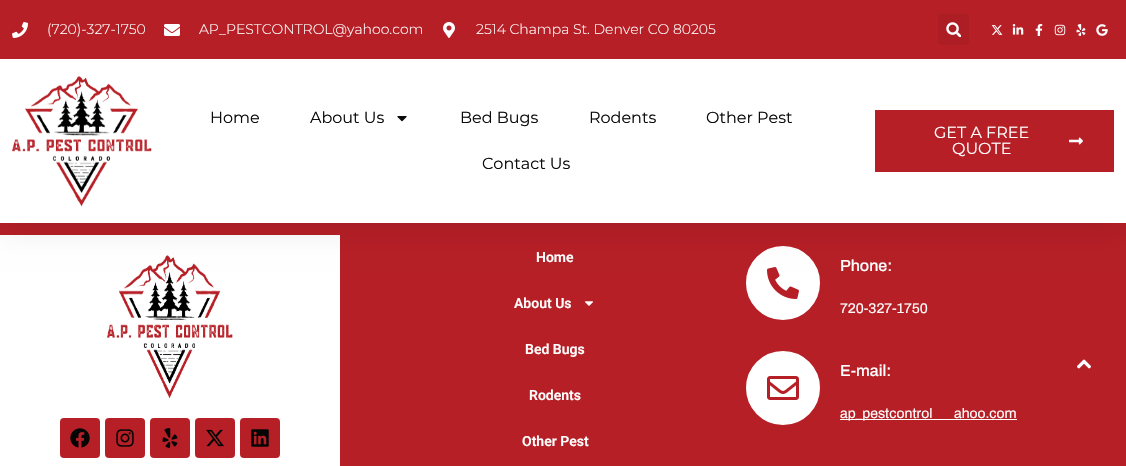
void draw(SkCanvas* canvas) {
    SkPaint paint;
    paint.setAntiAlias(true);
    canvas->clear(0xFFB61F26);
    paint.setColor(0xFFFFFFFF);
    canvas->drawRect(SkRect::MakeXYWH(0, 235, 340, 231), paint);
    canvas->drawImageRect(SkImages::DeferredFromEncodedData(SkData::MakeFromFileName("img14.png")), SkRect::MakeXYWH(107, 255, 126, 143), SkSamplingOptions());
    canvas->drawCircle(783, 283, 38, paint);
    paint.setStyle(SkPaint::kStroke_Style);
    paint.setStrokeWidth(2);
    paint.setColor(0xFFB61F26);
    canvas->drawCircle(783, 283, 38, paint);
    canvas->drawImageRect(SkImages::DeferredFromEncodedData(SkData::MakeFromFileName("img21.png")), SkRect::MakeXYWH(767, 267, 32, 32), SkSamplingOptions());
    paint.setStyle(SkPaint::kFill_Style);
    paint.setColor(0x1A000000);
    paint.setMaskFilter(SkMaskFilter::MakeBlur(kNormal_SkBlurStyle, 15));
    canvas->drawRect(SkRect::MakeXYWH(0, 5, 1126, 223), paint);
    paint.setMaskFilter(nullptr);
    paint.setColor(0xFFB61F26);
    canvas->drawRect(SkRect::MakeXYWH(0, 0, 1126, 59), paint);
    canvas->drawImageRect(SkImages::DeferredFromEncodedData(SkData::MakeFromFileName("img1.png")), SkRect::MakeXYWH(12, 22, 16, 16), SkSamplingOptions());
    SkFont font1(fontMgr->matchFamilyStyle("Montserrat", SkFontStyle(300, SkFontStyle::kNormal_Width, SkFontStyle::kUpright_Slant)), 14);
    font1.setSubpixel(true);
    paint.setColor(0xFFFFFFFF);
    canvas->drawString("(720)-327-1750", 47, 34, font1, paint);
    canvas->drawImageRect(SkImages::DeferredFromEncodedData(SkData::MakeFromFileName("img2.png")), SkRect::MakeXYWH(164, 24, 16, 12), SkSamplingOptions());
    canvas->drawString("AP_PESTCONTROL@yahoo.com", 199, 34, font1, paint);
    canvas->drawImageRect(SkImages::DeferredFromEncodedData(SkData::MakeFromFileName("img3.png")), SkRect::MakeXYWH(443, 22, 12, 16), SkSamplingOptions());
    canvas->drawString("2514 Champa St. Denver CO 80205", 476, 34, font1, paint);
    paint.setColor(0xFFAD1D24);
    canvas->drawRoundRect(SkRect::MakeXYWH(938, 14, 31, 31), 3, 3, paint);
    canvas->drawImageRect(SkImages::DeferredFromEncodedData(SkData::MakeFromFileName("img4.png")), SkRect::MakeXYWH(946, 22, 15, 15), SkSamplingOptions());
    canvas->drawImageRect(SkImages::DeferredFromEncodedData(SkData::MakeFromFileName("img5.png")), SkRect::MakeXYWH(991, 25, 12, 10), SkSamplingOptions());
    canvas->drawImageRect(SkImages::DeferredFromEncodedData(SkData::MakeFromFileName("img6.png")), SkRect::MakeXYWH(1012, 24, 12, 11), SkSamplingOptions());
    canvas->drawImageRect(SkImages::DeferredFromEncodedData(SkData::MakeFromFileName("img7.png")), SkRect::MakeXYWH(1035, 24, 8, 12), SkSamplingOptions());
    canvas->drawImageRect(SkImages::DeferredFromEncodedData(SkData::MakeFromFileName("img8.png")), SkRect::MakeXYWH(1054, 24, 12, 12), SkSamplingOptions());
    canvas->drawImageRect(SkImages::DeferredFromEncodedData(SkData::MakeFromFileName("img9.png")), SkRect::MakeXYWH(1076, 24, 10, 12), SkSamplingOptions());
    canvas->drawImageRect(SkImages::DeferredFromEncodedData(SkData::MakeFromFileName("img10.png")), SkRect::MakeXYWH(1096, 24, 12, 12), SkSamplingOptions());
    paint.setColor(0xFFFFFFFF);
    canvas->drawRect(SkRect::MakeXYWH(0, 59, 1126, 164), paint);
    canvas->drawImageRect(SkImages::DeferredFromEncodedData(SkData::MakeFromFileName("img11.png")), SkRect::MakeXYWH(12, 76, 140, 131), SkSamplingOptions());
    SkFont font2(fontMgr->matchFamilyStyle("Montserrat", SkFontStyle::Normal()), 16);
    font2.setSubpixel(true);
    paint.setColor(0xFF0A0A0A);
    canvas->drawString("Home", 210, 123, font2, paint);
    canvas->drawString("About Us", 310, 123, font2, paint);
    canvas->drawImageRect(SkImages::DeferredFromEncodedData(SkData::MakeFromFileName("img12.png")), SkRect::MakeXYWH(397, 116, 10, 6), SkSamplingOptions());
    canvas->drawString("Bed Bugs", 460, 123, font2, paint);
    canvas->drawString("Rodents", 589, 123, font2, paint);
    canvas->drawString("Other Pest", 706, 123, font2, paint);
    canvas->drawString("Contact Us", 482, 169, font2, paint);
    paint.setColor(0xFFB61F26);
    canvas->drawRect(SkRect::MakeXYWH(875, 110, 239, 62), paint);
    paint.setColor(0xFFFFFFFF);
    canvas->drawString("GET A FREE", 934, 138, font2, paint);
    canvas->drawString("QUOTE", 952, 154, font2, paint);
    canvas->drawImageRect(SkImages::DeferredFromEncodedData(SkData::MakeFromFileName("img13.png")), SkRect::MakeXYWH(1069, 137, 14, 8), SkSamplingOptions());
    paint.setColor(0xFFB61F26);
    canvas->drawRoundRect(SkRect::MakeXYWH(60, 418, 40, 40), 4, 4, paint);
    canvas->drawImageRect(SkImages::DeferredFromEncodedData(SkData::MakeFromFileName("img15.png")), SkRect::MakeXYWH(70, 428, 20, 20), SkSamplingOptions());
    canvas->drawRoundRect(SkRect::MakeXYWH(105, 418, 40, 40), 4, 4, paint);
    canvas->drawImageRect(SkImages::DeferredFromEncodedData(SkData::MakeFromFileName("img16.png")), SkRect::MakeXYWH(116, 429, 18, 18), SkSamplingOptions());
    canvas->drawRoundRect(SkRect::MakeXYWH(150, 418, 40, 40), 4, 4, paint);
    canvas->drawImageRect(SkImages::DeferredFromEncodedData(SkData::MakeFromFileName("img17.png")), SkRect::MakeXYWH(162, 428, 16, 20), SkSamplingOptions());
    canvas->drawRoundRect(SkRect::MakeXYWH(195, 418, 40, 40), 4, 4, paint);
    canvas->drawImageRect(SkImages::DeferredFromEncodedData(SkData::MakeFromFileName("img18.png")), SkRect::MakeXYWH(206, 429, 18, 18), SkSamplingOptions());
    canvas->drawRoundRect(SkRect::MakeXYWH(240, 418, 40, 40), 4, 4, paint);
    canvas->drawImageRect(SkImages::DeferredFromEncodedData(SkData::MakeFromFileName("img19.png")), SkRect::MakeXYWH(251, 429, 18, 18), SkSamplingOptions());
    SkFont font3(fontMgr->matchFamilyStyle("Roboto", SkFontStyle(600, SkFontStyle::kNormal_Width, SkFontStyle::kUpright_Slant)), 14);
    font3.setSubpixel(true);
    paint.setColor(0xFFFFFFFF);
    canvas->drawString("Home", 536, 262, font3, paint);
    canvas->drawString("About Us", 514, 308, font3, paint);
    canvas->drawImageRect(SkImages::DeferredFromEncodedData(SkData::MakeFromFileName("img20.png")), SkRect::MakeXYWH(585, 301, 8, 5), SkSamplingOptions());
    canvas->drawString("Bed Bugs", 525, 354, font3, paint);
    canvas->drawString("Rodents", 529, 400, font3, paint);
    canvas->drawString("Other Pest", 522, 446, font3, paint);
    SkFont font4(fontMgr->matchFamilyStyle("Archivo", SkFontStyle(500, SkFontStyle::kNormal_Width, SkFontStyle::kUpright_Slant)), 16);
    font4.setSubpixel(true);
    canvas->drawString("Phone:", 840, 271, font4, paint);
    SkFont font5(fontMgr->matchFamilyStyle("Archivo", SkFontStyle::Normal()), 14);
    font5.setSubpixel(true);
    canvas->drawString("720-327-1750", 840, 313, font5, paint);
    canvas->drawCircle(783, 388, 38, paint);
    paint.setStyle(SkPaint::kStroke_Style);
    paint.setColor(0xFFB61F26);
    canvas->drawCircle(783, 388, 38, paint);
    canvas->drawImageRect(SkImages::DeferredFromEncodedData(SkData::MakeFromFileName("img22.png")), SkRect::MakeXYWH(767, 376, 32, 24), SkSamplingOptions());
    paint.setStyle(SkPaint::kFill_Style);
    paint.setColor(0xFFFFFFFF);
    canvas->drawString("E-mail:", 840, 376, font4, paint);
    canvas->drawRect(SkRect::MakeXYWH(840, 419, 177, 1), paint);
    canvas->drawString("ap_pestcontrol", 840, 418, font5, paint);
    canvas->drawString("ahoo.com", 954, 418, font5, paint);
    canvas->drawImageRect(SkImages::DeferredFromEncodedData(SkData::MakeFromFileName("img23.png")), SkRect::MakeXYWH(1077, 359, 14, 10), SkSamplingOptions());
}
